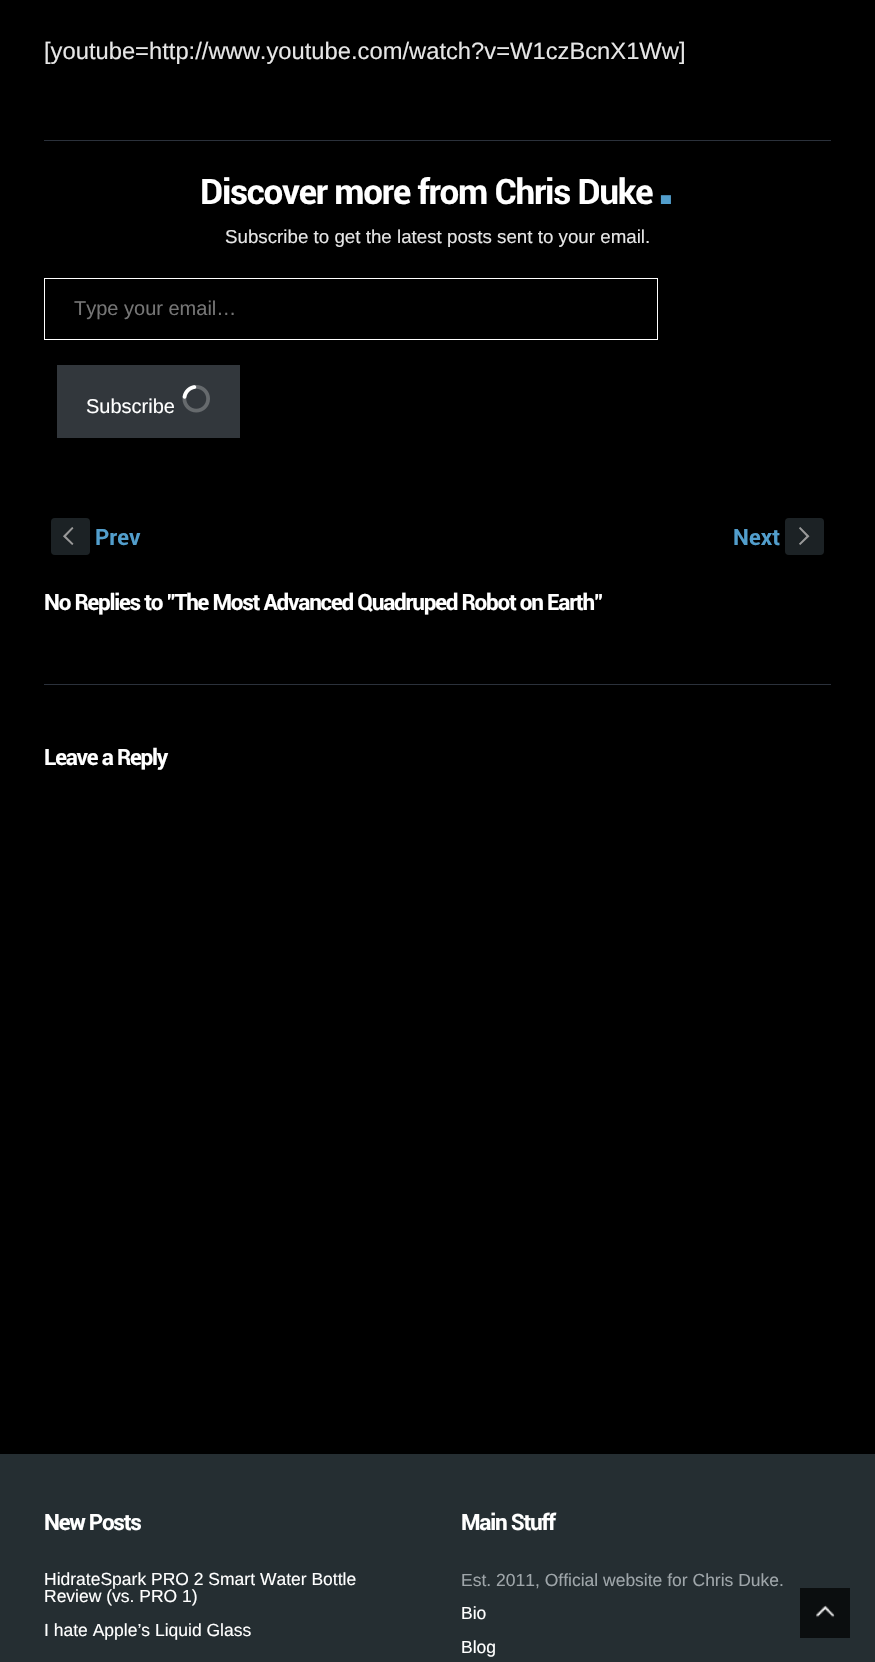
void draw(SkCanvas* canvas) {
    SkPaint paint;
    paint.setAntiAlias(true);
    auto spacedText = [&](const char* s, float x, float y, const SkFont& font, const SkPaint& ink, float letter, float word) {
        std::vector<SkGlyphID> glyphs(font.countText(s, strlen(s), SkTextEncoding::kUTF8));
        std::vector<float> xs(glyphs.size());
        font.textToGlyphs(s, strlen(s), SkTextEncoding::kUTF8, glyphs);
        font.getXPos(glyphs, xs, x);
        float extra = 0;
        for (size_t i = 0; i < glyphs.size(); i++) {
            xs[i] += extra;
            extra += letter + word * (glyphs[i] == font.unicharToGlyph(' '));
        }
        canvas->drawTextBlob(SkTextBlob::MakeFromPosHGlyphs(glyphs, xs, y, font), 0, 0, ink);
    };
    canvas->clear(0xFF000000);
    SkFont font1(fontMgr->matchFamilyStyle("Liberation Sans", SkFontStyle::Normal()), 23.75f);
    font1.setSubpixel(true);
    paint.setColor(0xFFE6E6E6);
    canvas->drawString("[youtube=http://www.youtube.com/watch?v=W1czBcnX1Ww]", 44, 59, font1, paint);
    paint.setColor(0xFF2B313B);
    canvas->drawRect(SkRect::MakeXYWH(44, 140, 787, 1), paint);
    SkFont font2(fontMgr->matchFamilyStyle("Roboto", SkFontStyle::Bold()), 35);
    font2.setSubpixel(true);
    paint.setColor(0xFFFFFFFF);
    spacedText("Discover more from Chris Duke", 200, 204, font2, paint, -1.25f, 0);
    SkFont font3(fontMgr->matchFamilyStyle("Roboto", SkFontStyle::Bold()), 70);
    font3.setSubpixel(true);
    paint.setColor(0xFF529ECC);
    spacedText(".", 656, 204, font3, paint, -1.25f, 0);
    SkFont font4(fontMgr->matchFamilyStyle("Liberation Sans", SkFontStyle::Normal()), 18.75f);
    font4.setSubpixel(true);
    paint.setColor(0xFFE6E6E6);
    canvas->drawString("Subscribe to get the latest posts sent to your email.", 225, 243, font4, paint);
    paint.setStyle(SkPaint::kStroke_Style);
    paint.setStrokeWidth(1);
    paint.setColor(0xFFFFFFFF);
    canvas->drawRect(SkRect::MakeXYWH(44.5f, 278.5f, 613, 61), paint);
    SkFont font5(fontMgr->matchFamilyStyle("Liberation Sans", SkFontStyle::Normal()), 20);
    font5.setSubpixel(true);
    paint.setStyle(SkPaint::kFill_Style);
    paint.setColor(0xFF757575);
    canvas->drawString("Type your email…", 74, 315, font5, paint);
    paint.setColor(0xFF32373C);
    canvas->drawRect(SkRect::MakeXYWH(57, 365, 183, 73), paint);
    paint.setColor(0xFFFFFFFF);
    canvas->drawString("Subscribe", 86, 413, font5, paint);
    canvas->drawImageRect(SkImages::DeferredFromEncodedData(SkData::MakeFromFileName("img1.png")), SkRect::MakeXYWH(182, 385, 28, 28), SkSamplingOptions());
    paint.setColor(0xFF1C2225);
    canvas->drawRoundRect(SkRect::MakeXYWH(51, 518, 39, 37), 4, 4, paint);
    SkFont font6(fontMgr->matchFamilyStyle("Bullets", SkFontStyle::Normal()), 22.5f);
    font6.setSubpixel(true);
    paint.setColor(0xFF999999);
    canvas->drawString("S", 63, 545, font6, paint);
    SkFont font7(fontMgr->matchFamilyStyle("Roboto", SkFontStyle::Bold()), 22.5f);
    font7.setSubpixel(true);
    paint.setColor(0xFF529ECC);
    canvas->drawString("Prev", 95, 545, font7, paint);
    canvas->drawString("Next", 733, 545, font7, paint);
    paint.setColor(0xFF1C2225);
    canvas->drawRoundRect(SkRect::MakeXYWH(785, 518, 39, 37), 4, 4, paint);
    paint.setColor(0xFF999999);
    canvas->drawString("s", 799, 545, font6, paint);
    paint.setColor(0xFFFFFFFF);
    spacedText("No Replies to \"The Most Advanced Quadruped Robot on Earth\"", 44, 610, font7, paint, -1.25f, 0);
    paint.setColor(0xFF2B313B);
    canvas->drawRect(SkRect::MakeXYWH(44, 684, 787, 1), paint);
    paint.setColor(0xFFFFFFFF);
    spacedText("Leave a Reply", 44, 765, font7, paint, -1.25f, 0);
    paint.setColor(0xFF252E32);
    canvas->drawRect(SkRect::MakeXYWH(0, 1454, 875, 208), paint);
    paint.setColor(0xFFFFFFFF);
    spacedText("New Posts", 44, 1530, font7, paint, -1.25f, 0);
    SkFont font8(fontMgr->matchFamilyStyle("Liberation Sans", SkFontStyle::Normal()), 17.5f);
    font8.setSubpixel(true);
    canvas->drawString("HidrateSpark PRO 2 Smart Water Bottle", 44, 1585, font8, paint);
    canvas->drawString("Review (vs. PRO 1)", 44, 1602, font8, paint);
    canvas->drawString("I hate Apple’s Liquid Glass", 44, 1636, font8, paint);
    spacedText("Main Stuff", 461, 1530, font7, paint, -1.25f, 0);
    paint.setColor(0xFF9FA6AA);
    canvas->drawString("Est. 2011, Official website for Chris Duke.", 461, 1586, font8, paint);
    paint.setColor(0xFFFFFFFF);
    canvas->drawString("Bio", 461, 1619, font8, paint);
    canvas->drawString("Blog", 461, 1653, font8, paint);
    paint.setColor(0xFF0B0E0F);
    canvas->drawRect(SkRect::MakeXYWH(800, 1588, 50, 50), paint);
    canvas->drawImageRect(SkImages::DeferredFromEncodedData(SkData::MakeFromFileName("img2.png")), SkRect::MakeXYWH(816, 1605, 19, 13), SkSamplingOptions());
}
